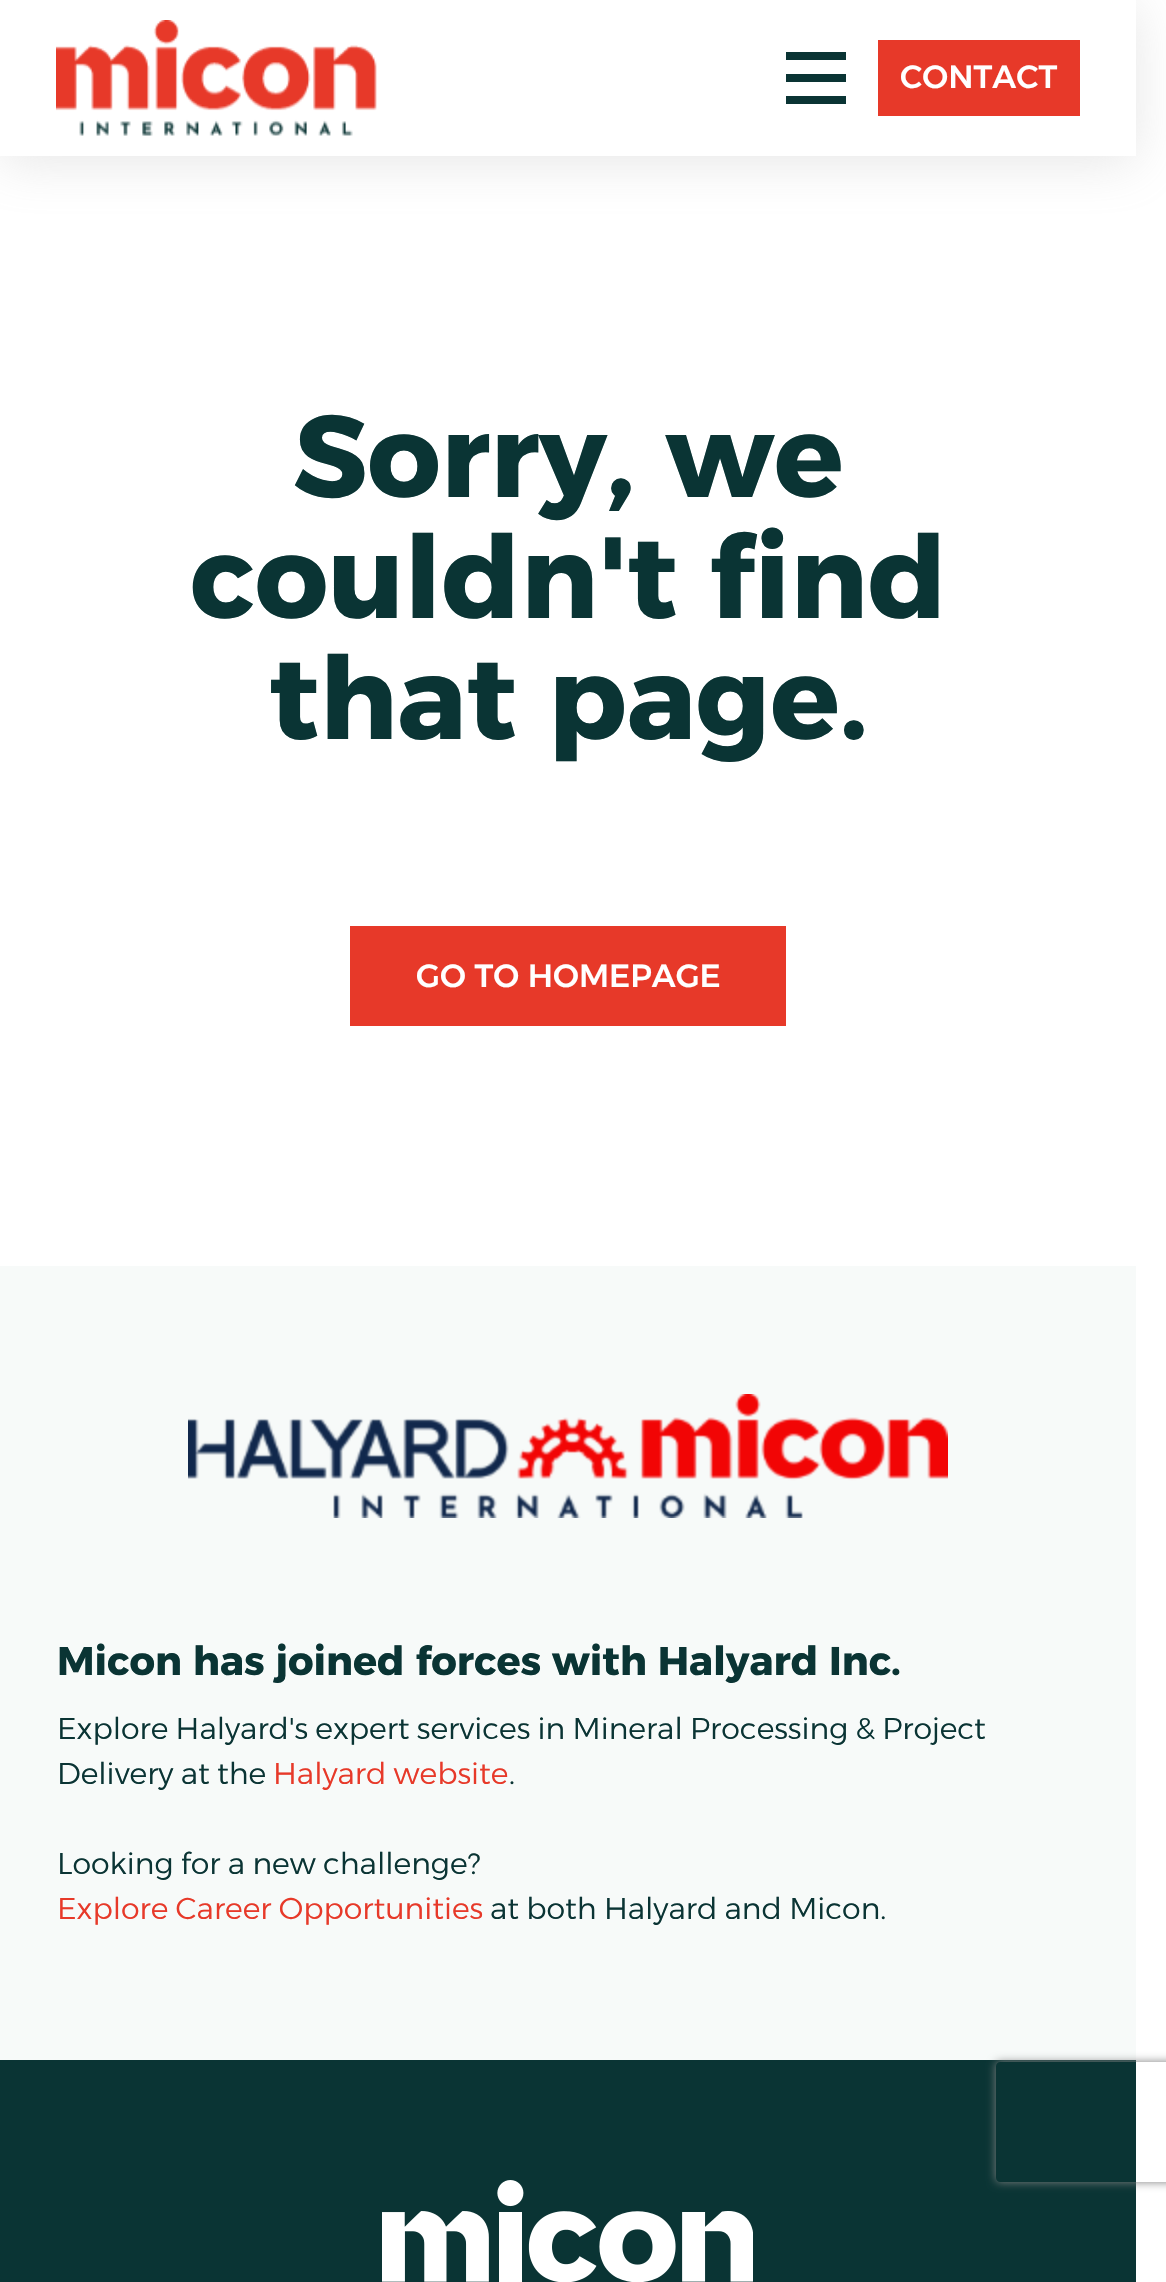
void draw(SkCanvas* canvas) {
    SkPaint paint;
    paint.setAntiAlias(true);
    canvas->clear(0xFFFFFFFF);
    canvas->save();
    canvas->clipPath(SkPathBuilder(SkPathFillType::kEvenOdd).moveTo(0, 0).lineTo(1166, 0).lineTo(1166, 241).lineTo(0, 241).close().moveTo(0, 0).lineTo(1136, 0).lineTo(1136, 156).lineTo(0, 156).close().detach(), true);
    paint.setColor(0x4AAAAAAA);
    paint.setMaskFilter(SkMaskFilter::MakeBlur(kNormal_SkBlurStyle, 26));
    canvas->drawRect(SkRect::MakeXYWH(0, 6, 1136, 156), paint);
    paint.setMaskFilter(nullptr);
    canvas->restore();
    canvas->drawImageRect(SkImages::DeferredFromEncodedData(SkData::MakeFromFileName("img1.png")), SkRect::MakeXYWH(56, 20, 321, 116), SkSamplingOptions());
    paint.setColor(0xFF0A3434);
    canvas->drawRect(SkRect::MakeXYWH(786, 52, 60, 8), paint);
    canvas->drawRect(SkRect::MakeXYWH(786, 74, 60, 8), paint);
    canvas->drawRect(SkRect::MakeXYWH(786, 96, 60, 8), paint);
    paint.setColor(0xFFE73929);
    canvas->drawRect(SkRect::MakeXYWH(878, 40, 202, 76), paint);
    SkFont font1(fontMgr->matchFamilyStyle("Alexandria", SkFontStyle(500, SkFontStyle::kNormal_Width, SkFontStyle::kUpright_Slant)), 32);
    font1.setSubpixel(true);
    paint.setColor(0xFFFFFFFF);
    canvas->drawString("CONTACT", 900, 88, font1, paint);
    SkFont font2(fontMgr->matchFamilyStyle("Alexandria", SkFontStyle::Bold()), 115);
    font2.setSubpixel(true);
    paint.setColor(0xFF0A3434);
    canvas->drawString("Sorry, we", 293, 497, font2, paint);
    canvas->drawString("couldn't find", 190, 618, font2, paint);
    canvas->drawString("that page.", 269, 739, font2, paint);
    paint.setColor(0xFFE73929);
    canvas->drawRect(SkRect::MakeXYWH(350, 926, 436, 100), paint);
    paint.setColor(0xFFFFFFFF);
    canvas->drawString("GO TO HOMEPAGE", 416, 987, font1, paint);
    paint.setColor(0xFFF7FAF9);
    canvas->drawRect(SkRect::MakeXYWH(0, 1266, 1136, 794), paint);
    canvas->drawImageRect(SkImages::DeferredFromEncodedData(SkData::MakeFromFileName("img2.png")), SkRect::MakeXYWH(188, 1394, 760, 124), SkSamplingOptions());
    SkFont font3(fontMgr->matchFamilyStyle("Alexandria", SkFontStyle::Bold()), 40);
    font3.setSubpixel(true);
    paint.setColor(0xFF0A3434);
    canvas->drawString("Micon has joined forces with Halyard Inc.", 57, 1675, font3, paint);
    SkFont font4(fontMgr->matchFamilyStyle("Alexandria", SkFontStyle(300, SkFontStyle::kNormal_Width, SkFontStyle::kUpright_Slant)), 30);
    font4.setSubpixel(true);
    canvas->drawString("Explore Halyard's expert services in Mineral Processing & Project", 57, 1739, font4, paint);
    canvas->drawString("Delivery at the", 57, 1784, font4, paint);
    paint.setColor(0xFFE73929);
    canvas->drawString("Halyard website", 273, 1784, font4, paint);
    paint.setColor(0xFF0A3434);
    canvas->drawString(".", 509, 1784, font4, paint);
    canvas->drawString("Looking for a new challenge?", 57, 1874, font4, paint);
    paint.setColor(0xFFE73929);
    canvas->drawString("Explore Career Opportunities", 57, 1919, font4, paint);
    paint.setColor(0xFF0A3434);
    canvas->drawString("at both Halyard and Micon.", 490, 1919, font4, paint);
    canvas->drawRect(SkRect::MakeXYWH(0, 2060, 1136, 222), paint);
    canvas->save();
    canvas->clipPath(SkPathBuilder(SkPathFillType::kEvenOdd).moveTo(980, 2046).lineTo(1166, 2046).lineTo(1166, 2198).lineTo(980, 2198).close().moveTo(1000, 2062).lineTo(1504, 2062).cubicTo(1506, 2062, 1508, 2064, 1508, 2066).lineTo(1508, 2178).cubicTo(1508, 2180, 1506, 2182, 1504, 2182).lineTo(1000, 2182).cubicTo(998, 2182, 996, 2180, 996, 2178).lineTo(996, 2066).cubicTo(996, 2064, 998, 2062, 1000, 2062).close().detach(), true);
    paint.setColor(0xFF808080);
    paint.setMaskFilter(SkMaskFilter::MakeBlur(kNormal_SkBlurStyle, 5));
    canvas->drawRoundRect(SkRect::MakeXYWH(996, 2062, 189, 120), 4, 4, paint);
    paint.setMaskFilter(nullptr);
    canvas->restore();
    canvas->drawImageRect(SkImages::DeferredFromEncodedData(SkData::MakeFromFileName("img3.png")), SkRect::MakeXYWH(382, 2180, 371, 102), SkSamplingOptions());
}
